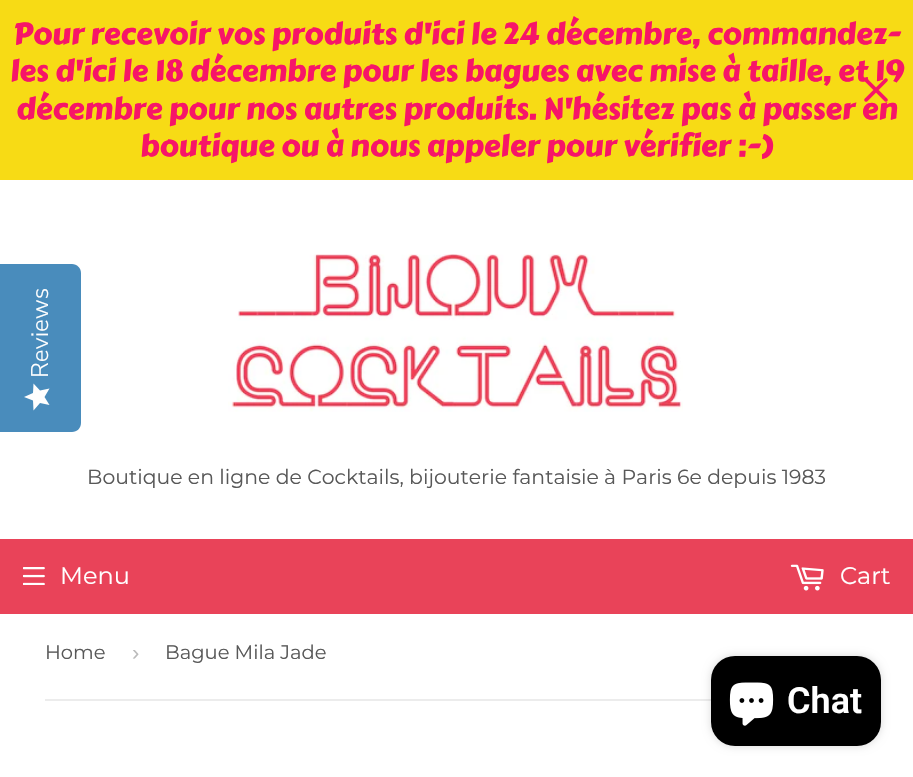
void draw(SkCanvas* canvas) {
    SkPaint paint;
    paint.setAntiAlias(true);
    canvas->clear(0xFFFFFFFF);
    paint.setColor(0xFFF7DB15);
    canvas->drawRect(SkRect::MakeXYWH(0, 0, 913, 180), paint);
    SkFont font1(fontMgr->matchFamilyStyle("Carter One", SkFontStyle::Normal()), 30);
    font1.setSubpixel(true);
    paint.setColor(0xFFF71568);
    canvas->drawString("Pour recevoir vos produits d'ici le 24 décembre, commandez-", 13, 44, font1, paint);
    canvas->drawString("les d'ici le 18 décembre pour les bagues avec mise à taille, et 19", 10, 81, font1, paint);
    canvas->drawString("décembre pour nos autres produits. N'hésitez pas à passer en", 16, 119, font1, paint);
    canvas->drawString("boutique ou à nous appeler pour vérifier :-)", 140, 156, font1, paint);
    canvas->drawImageRect(SkImages::DeferredFromEncodedData(SkData::MakeFromFileName("img1.png")), SkRect::MakeXYWH(864, 78, 24, 24), SkSamplingOptions());
    paint.setColor(0xFF498CBC);
    canvas->drawPath(SkPathBuilder().moveTo(0, 432).lineTo(0, 264).lineTo(72, 264).cubicTo(77, 264, 81, 268, 81, 273).lineTo(81, 423).cubicTo(81, 428, 77, 432, 72, 432).close().detach(), paint);
    SkFont font2(fontMgr->matchFamilyStyle("Nunito Sans", SkFontStyle(300, SkFontStyle::kNormal_Width, SkFontStyle::kUpright_Slant)), 24);
    font2.setSubpixel(true);
    paint.setColor(0xFFFFFFFF);
    canvas->save();
    canvas->rotate(-90, 48, 378);
    canvas->drawString("Reviews", 48, 378, font2, paint);
    canvas->restore();
    {
        const SkColor colors[] = {0xFFFEFEFE, 0xFFEAEAEA};
        const float stops[] = {1, 1};
        const SkPoint ends[] = {{24, 410}, {24, 383}};
        paint.setShader(SkGradientShader::MakeLinear(ends, colors, stops, 2, SkTileMode::kClamp));
        paint.setAlpha(255);
    }
    canvas->drawPath(SkPathBuilder().moveTo(44.5f, 397).lineTo(49.5f, 388.5f).lineTo(40, 390.5f).lineTo(33.5f, 383.5f).lineTo(33, 393).lineTo(24, 397).lineTo(33, 400.5f).lineTo(33.5f, 410.5f).lineTo(40, 403).lineTo(49.5f, 405).close().detach(), paint);
    canvas->drawImageRect(SkImages::DeferredFromEncodedData(SkData::MakeFromFileName("img2.png")), SkRect::MakeXYWH(228, 254, 455, 158), SkSamplingOptions());
    SkFont font3(fontMgr->matchFamilyStyle("Montserrat", SkFontStyle::Normal()), 20.4f);
    font3.setSubpixel(true);
    paint.setShader(nullptr);
    paint.setColor(0xFF585858);
    canvas->drawString("Boutique en ligne de Cocktails, bijouterie fantaisie à Paris 6e depuis 1983", 87, 484, font3, paint);
    paint.setColor(0xFFE94359);
    canvas->drawRect(SkRect::MakeXYWH(0, 539, 913, 75), paint);
    canvas->drawImageRect(SkImages::DeferredFromEncodedData(SkData::MakeFromFileName("img3.png")), SkRect::MakeXYWH(23, 567, 22, 18), SkSamplingOptions());
    SkFont font4(fontMgr->matchFamilyStyle("Montserrat", SkFontStyle::Normal()), 24);
    font4.setSubpixel(true);
    paint.setColor(0xFFFFFFFF);
    canvas->drawString("Menu", 60, 584, font4, paint);
    canvas->drawImageRect(SkImages::DeferredFromEncodedData(SkData::MakeFromFileName("img4.png")), SkRect::MakeXYWH(790, 564, 34, 27), SkSamplingOptions());
    canvas->drawString("Cart", 840, 584, font4, paint);
    paint.setColor(0xFFECECEC);
    canvas->drawRect(SkRect::MakeXYWH(45, 699, 666, 2), paint);
    SkFont font5(fontMgr->matchFamilyStyle("Montserrat", SkFontStyle::Normal()), 19.5f);
    font5.setSubpixel(true);
    paint.setColor(0xFF585858);
    canvas->drawString("Home", 45, 659, font5, paint);
    SkFont font6(fontMgr->matchFamilyStyle("Liberation Sans", SkFontStyle::Normal()), 22);
    font6.setSubpixel(true);
    paint.setColor(0xFFBBBBBB);
    canvas->drawString("›", 132, 660, font6, paint);
    paint.setColor(0xFF585858);
    canvas->drawString("Bague Mila Jade", 165, 659, font5, paint);
    paint.setColor(0x26000000);
    paint.setMaskFilter(SkMaskFilter::MakeBlur(kNormal_SkBlurStyle, 4));
    canvas->drawRoundRect(SkRect::MakeXYWH(711, 656, 170, 90), 24, 24, paint);
    paint.setMaskFilter(nullptr);
    paint.setColor(0xFF000000);
    canvas->drawRoundRect(SkRect::MakeXYWH(711, 656, 170, 90), 24, 24, paint);
    canvas->drawImageRect(SkImages::DeferredFromEncodedData(SkData::MakeFromFileName("img5.png")), SkRect::MakeXYWH(729, 682, 45, 44), SkSamplingOptions());
    SkFont font7(fontMgr->matchFamilyStyle("Roboto", SkFontStyle(600, SkFontStyle::kNormal_Width, SkFontStyle::kUpright_Slant)), 36);
    font7.setSubpixel(true);
    paint.setColor(0xFFFFFFFF);
    canvas->drawString("Chat", 787, 713, font7, paint);
}
